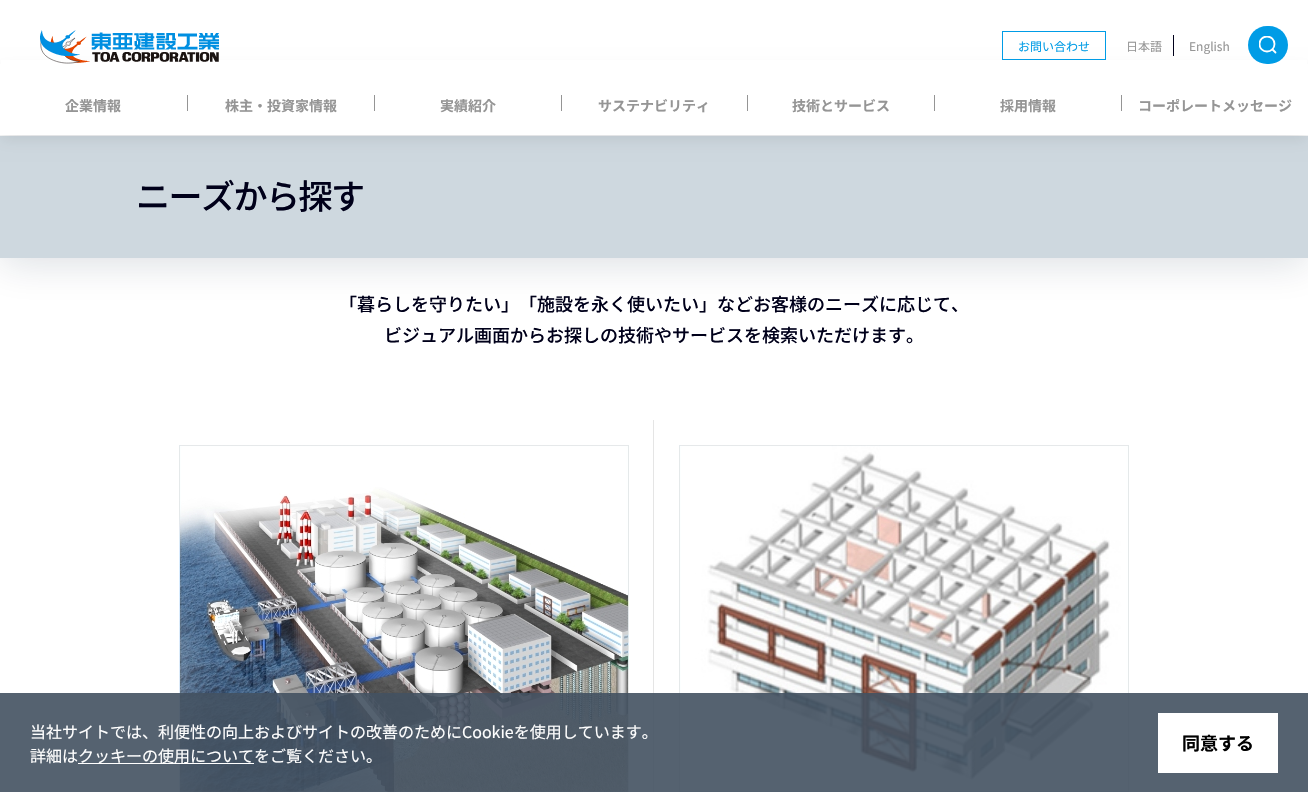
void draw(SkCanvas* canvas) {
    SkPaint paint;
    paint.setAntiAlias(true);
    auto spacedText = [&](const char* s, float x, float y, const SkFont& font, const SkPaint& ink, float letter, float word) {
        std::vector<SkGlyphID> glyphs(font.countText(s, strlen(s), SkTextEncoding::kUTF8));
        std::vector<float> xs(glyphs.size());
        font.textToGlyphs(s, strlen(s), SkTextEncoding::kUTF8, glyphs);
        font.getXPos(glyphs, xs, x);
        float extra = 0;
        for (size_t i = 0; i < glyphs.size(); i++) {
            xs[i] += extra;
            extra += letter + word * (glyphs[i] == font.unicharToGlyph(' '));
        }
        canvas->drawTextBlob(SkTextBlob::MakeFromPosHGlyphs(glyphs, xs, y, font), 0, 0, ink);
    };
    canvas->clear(0xFFFFFFFF);
    paint.setColor(0x2610213B);
    paint.setMaskFilter(SkMaskFilter::MakeBlur(kNormal_SkBlurStyle, 20));
    canvas->drawRect(SkRect::MakeXYWH(0, 141, 1308, 122), paint);
    paint.setMaskFilter(nullptr);
    paint.setColor(0xFFCED8DF);
    canvas->drawRect(SkRect::MakeXYWH(0, 136, 1308, 122), paint);
    paint.setColor(0x14000000);
    paint.setMaskFilter(SkMaskFilter::MakeBlur(kNormal_SkBlurStyle, 7.5f));
    canvas->drawRect(SkRect::MakeXYWH(0, 69, 1308, 71), paint);
    paint.setMaskFilter(nullptr);
    paint.setColor(0xFFFFFFFF);
    canvas->drawRect(SkRect::MakeXYWH(1, 60, 1306, 4), paint);
    canvas->drawImageRect(SkImages::DeferredFromEncodedData(SkData::MakeFromFileName("img1.png")), SkRect::MakeXYWH(40, 30, 179, 34), SkSamplingOptions());
    paint.setStyle(SkPaint::kStroke_Style);
    paint.setStrokeWidth(1);
    paint.setColor(0xFF009CE6);
    canvas->drawRect(SkRect::MakeXYWH(1002.5f, 31.5f, 103, 28), paint);
    SkFont font1(fontMgr->matchFamilyStyle("Noto Sans JP", SkFontStyle::Normal()), 12);
    font1.setSubpixel(true);
    paint.setStyle(SkPaint::kFill_Style);
    canvas->drawString("お問い合わせ", 1018, 51, font1, paint);
    paint.setColor(0xFF00001A);
    canvas->drawRect(SkRect::MakeXYWH(1173, 35, 1, 21), paint);
    paint.setColor(0xFF959595);
    canvas->drawString("日本語", 1126, 51, font1, paint);
    canvas->drawString("English", 1189, 51, font1, paint);
    paint.setColor(0xFF009CE6);
    canvas->drawRoundRect(SkRect::MakeXYWH(1248, 26, 40, 38), 19, 19, paint);
    canvas->save();
    canvas->clipRect(SkRect::MakeXYWH(1259, 36, 18, 18));
    paint.setStyle(SkPaint::kStroke_Style);
    paint.setStrokeWidth(1.8f);
    paint.setColor(0xFFFFFFFF);
    canvas->drawCircle(1267, 44, 7.5f, paint);
    canvas->restore();
    paint.setStrokeCap(SkPaint::kRound_Cap);
    paint.setStrokeJoin(SkPaint::kRound_Join);
    canvas->drawPath(SkPathBuilder().moveTo(1272.5f, 49.5f).lineTo(1275.5f, 52.5f).detach(), paint);
    paint.setStyle(SkPaint::kFill_Style);
    canvas->drawRect(SkRect::MakeXYWH(0, 64, 1308, 71), paint);
    SkFont font2(fontMgr->matchFamilyStyle("Noto Sans JP", SkFontStyle::Bold()), 14);
    font2.setSubpixel(true);
    paint.setColor(0xFF959595);
    canvas->drawString("企業情報", 65, 111, font2, paint);
    canvas->drawRect(SkRect::MakeXYWH(187, 95, 1, 16), paint);
    canvas->drawString("株主・投資家情報", 225, 111, font2, paint);
    canvas->drawRect(SkRect::MakeXYWH(374, 95, 1, 16), paint);
    canvas->drawString("実績紹介", 440, 111, font2, paint);
    canvas->drawRect(SkRect::MakeXYWH(561, 95, 1, 16), paint);
    canvas->drawString("サステナビリティ", 598, 111, font2, paint);
    canvas->drawRect(SkRect::MakeXYWH(747, 95, 1, 16), paint);
    canvas->drawString("技術とサービス", 792, 111, font2, paint);
    canvas->drawRect(SkRect::MakeXYWH(934, 95, 1, 16), paint);
    canvas->drawString("採用情報", 1000, 111, font2, paint);
    canvas->drawRect(SkRect::MakeXYWH(1121, 95, 1, 16), paint);
    canvas->drawString("コーポレートメッセージ", 1138, 111, font2, paint);
    SkFont font3(fontMgr->matchFamilyStyle("Noto Sans JP", SkFontStyle(500, SkFontStyle::kNormal_Width, SkFontStyle::kUpright_Slant)), 34);
    font3.setSubpixel(true);
    paint.setColor(0xFF00001A);
    spacedText("ニーズから探す", 136, 209, font3, paint, -1.5f, 0);
    SkFont font4(fontMgr->matchFamilyStyle("Noto Sans JP", SkFontStyle(500, SkFontStyle::kNormal_Width, SkFontStyle::kUpright_Slant)), 18);
    font4.setSubpixel(true);
    canvas->drawString("「暮らしを守りたい」「施設を永く使いたい」などお客様のニーズに応じて、", 339, 311, font4, paint);
    canvas->drawString("ビジュアル画面からお探しの技術やサービスを検索いただけます。", 384, 342, font4, paint);
    canvas->drawImageRect(SkImages::DeferredFromEncodedData(SkData::MakeFromFileName("img2.png")), SkRect::MakeXYWH(179, 445, 450, 347), SkSamplingOptions());
    paint.setColor(0xFFE5E5E5);
    canvas->drawRect(SkRect::MakeXYWH(653, 420, 1, 372), paint);
    canvas->drawImageRect(SkImages::DeferredFromEncodedData(SkData::MakeFromFileName("img3.png")), SkRect::MakeXYWH(679, 445, 450, 347), SkSamplingOptions());
    paint.setColor(0xE6435160);
    canvas->drawRect(SkRect::MakeXYWH(0, 693, 1308, 99), paint);
    SkFont font5(fontMgr->matchFamilyStyle("Noto Sans JP", SkFontStyle::Normal()), 16);
    font5.setSubpixel(true);
    paint.setColor(0xFFFFFFFF);
    canvas->drawString("当社サイトでは、利便性の向上およびサイトの改善のためにCookieを使用しています。", 30, 738, font5, paint);
    canvas->drawString("詳細は", 30, 762, font5, paint);
    canvas->drawRect(SkRect::MakeXYWH(78, 763, 176, 1), paint);
    canvas->drawString("クッキーの使用についてをご覧ください。", 78, 762, font5, paint);
    canvas->drawRect(SkRect::MakeXYWH(1158, 713, 120, 60), paint);
    SkFont font6(fontMgr->matchFamilyStyle("Noto Sans JP", SkFontStyle::Bold()), 18);
    font6.setSubpixel(true);
    paint.setColor(0xFF000000);
    canvas->drawString("同意する", 1182, 750, font6, paint);
}
